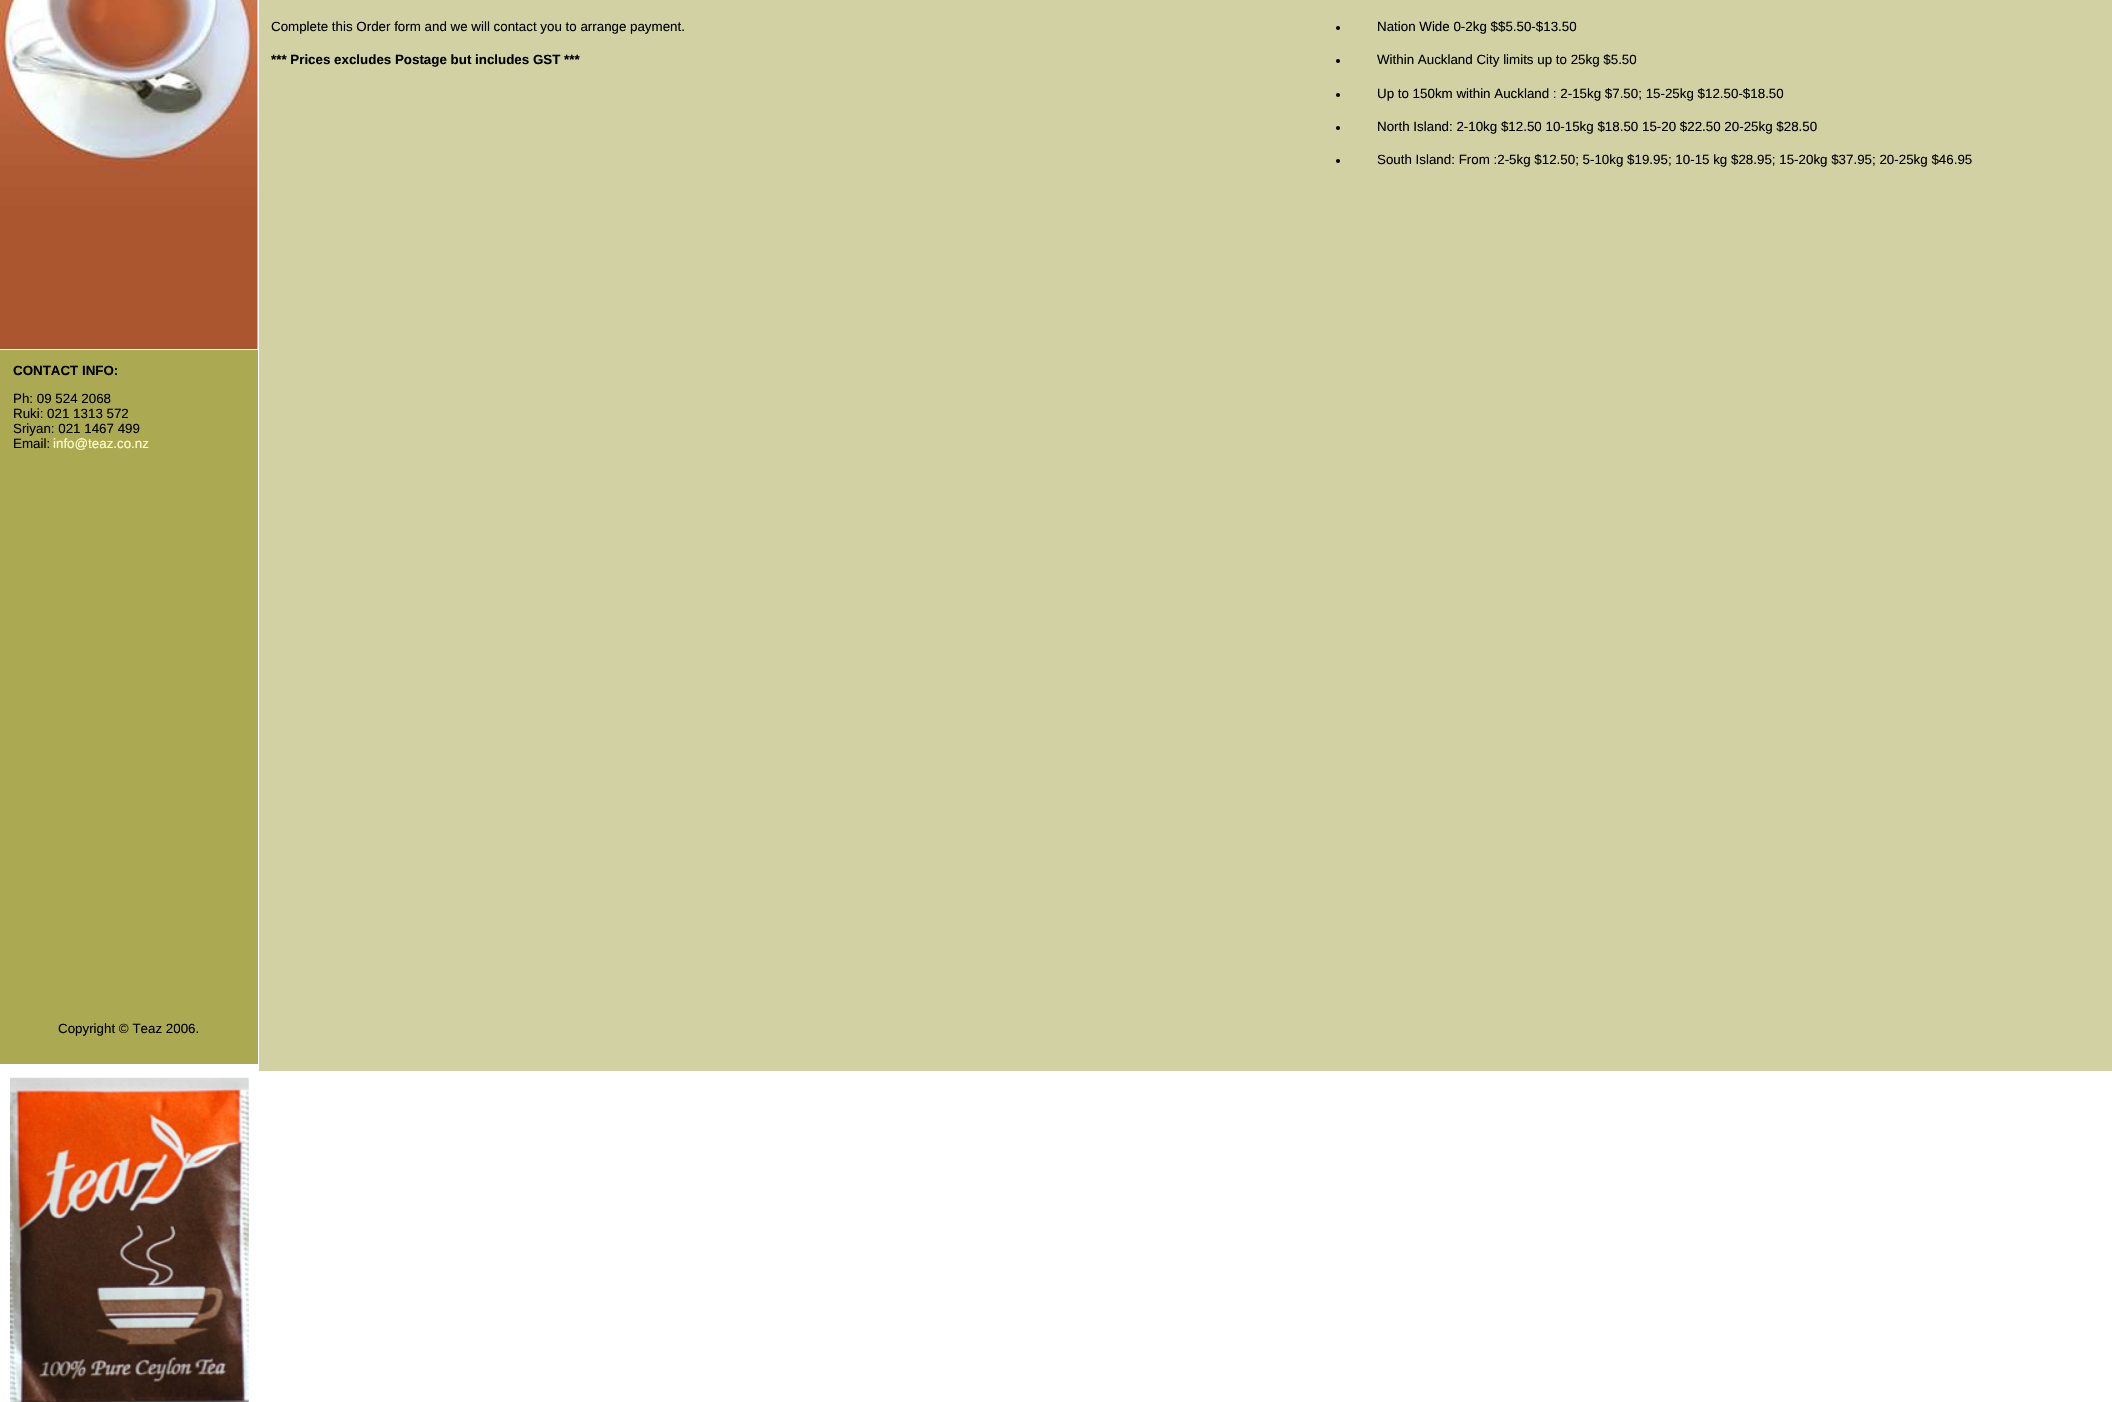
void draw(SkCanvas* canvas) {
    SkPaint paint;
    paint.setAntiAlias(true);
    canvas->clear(0xFFFFFFFF);
    paint.setColor(0xFFD2D1A4);
    canvas->drawRect(SkRect::MakeXYWH(259, 0, 1853, 1071), paint);
    SkFont font1(fontMgr->matchFamilyStyle("Liberation Sans", SkFontStyle::Normal()), 13.35f);
    font1.setSubpixel(true);
    paint.setColor(0xFF000000);
    canvas->drawString("Complete this Order form and we will contact you to arrange", 271, 31, font1, paint);
    canvas->drawString("payment.", 630, 31, font1, paint);
    SkFont font2(fontMgr->matchFamilyStyle("Liberation Sans", SkFontStyle::Bold()), 13.35f);
    font2.setSubpixel(true);
    canvas->drawString("*** Prices excludes Postage but includes GST ***", 271, 64, font2, paint);
    canvas->drawCircle(1338, 28, 2, paint);
    canvas->drawString("Nation Wide 0-2kg $$5.50-$13.50", 1377, 31, font1, paint);
    canvas->drawCircle(1338, 61, 2, paint);
    canvas->drawString("Within Auckland City limits up to 25kg $5.50", 1377, 64, font1, paint);
    canvas->drawCircle(1338, 95, 2, paint);
    canvas->drawString("Up to 150km within Auckland : 2-15kg $7.50; 15-25kg $12.50-$18.50", 1377, 98, font1, paint);
    canvas->drawCircle(1338, 128, 2, paint);
    canvas->drawString("North Island: 2-10kg $12.50 10-15kg $18.50 15-20 $22.50 20-25kg $28.50", 1377, 131, font1, paint);
    canvas->drawCircle(1338, 161, 2, paint);
    canvas->drawString("South Island: From :2-5kg $12.50; 5-10kg $19.95; 10-15 kg $28.95; 15-20kg $37.95; 20-25kg $46.95", 1377, 164, font1, paint);
    canvas->drawImageRect(SkImages::DeferredFromEncodedData(SkData::MakeFromFileName("img1.png")), SkRect::MakeXYWH(0, 0, 258, 349), SkSamplingOptions());
    paint.setColor(0xFFACA953);
    canvas->drawRect(SkRect::MakeXYWH(0, 350, 258, 714), paint);
    paint.setColor(0xFF000000);
    canvas->drawString("CONTACT INFO:", 13, 375, font2, paint);
    canvas->drawString("Ph: 09 524 2068", 13, 403, font1, paint);
    canvas->drawString("Ruki: 021 1313 572", 13, 418, font1, paint);
    canvas->drawString("Sriyan: 021 1467 499", 13, 433, font1, paint);
    canvas->drawString("Email:", 13, 448, font1, paint);
    paint.setColor(0xFFFFFFCC);
    canvas->drawString("info@teaz.co.nz", 53, 448, font1, paint);
    paint.setColor(0xFF000000);
    canvas->drawString("Copyright © Teaz 2006.", 58, 1033, font1, paint);
    canvas->drawImageRect(SkImages::DeferredFromEncodedData(SkData::MakeFromFileName("img2.png")), SkRect::MakeXYWH(10, 1077, 239, 325), SkSamplingOptions());
}
